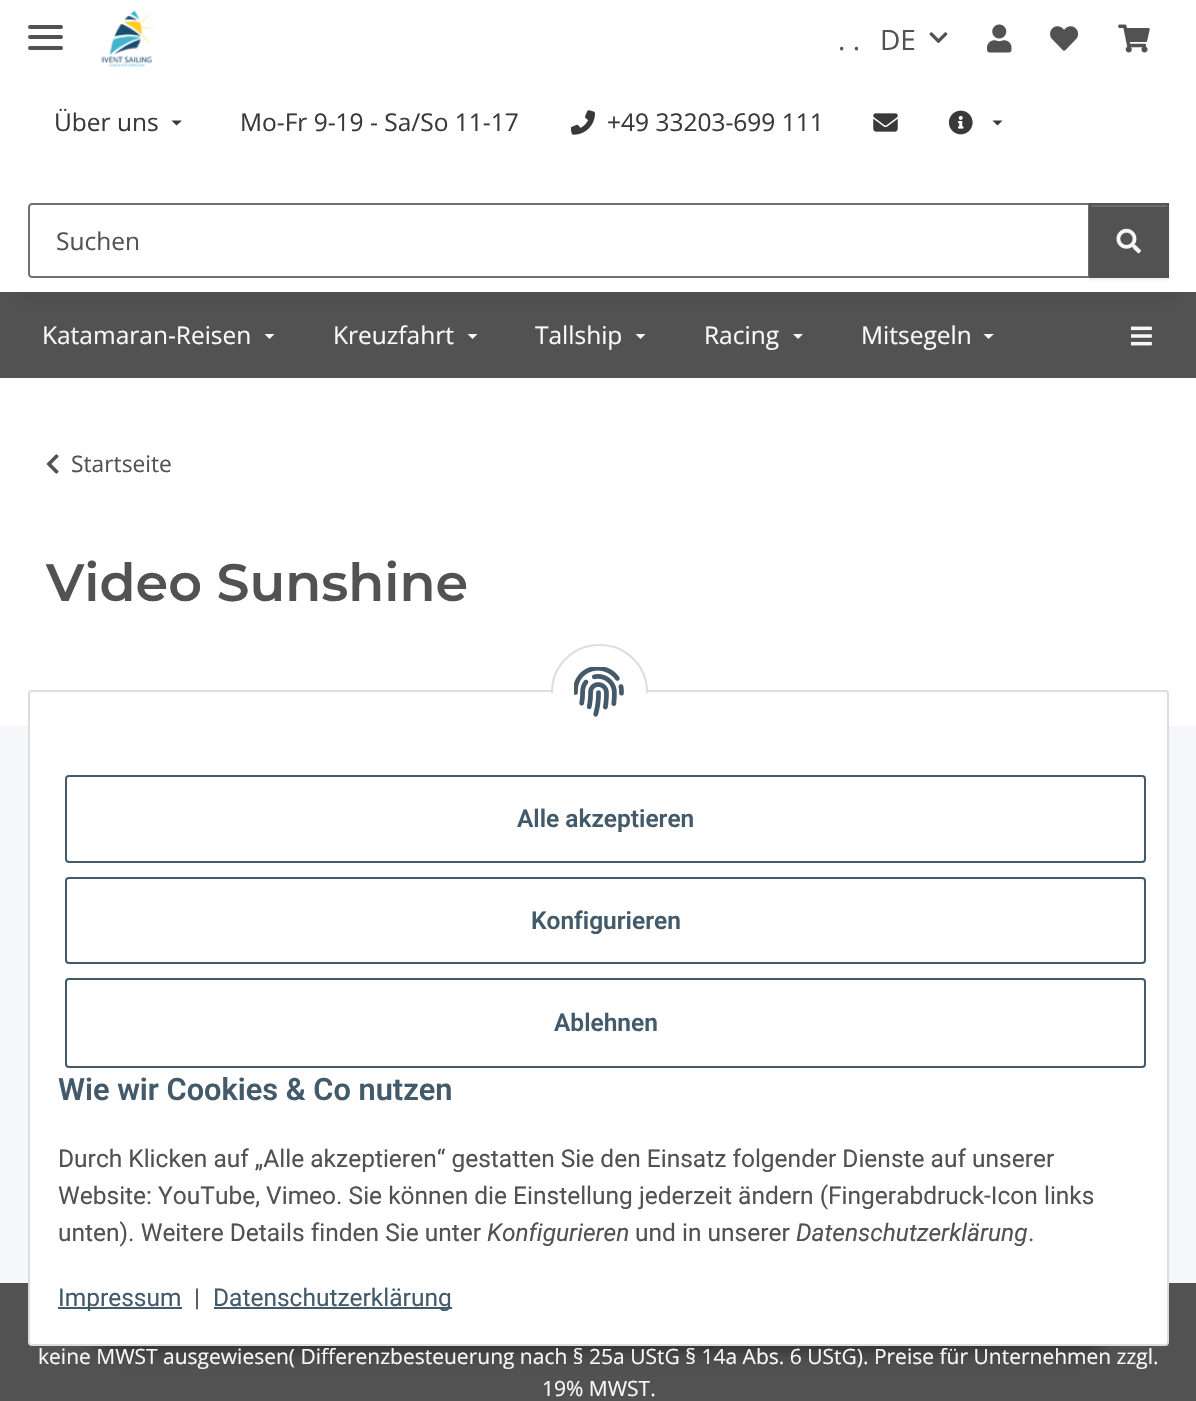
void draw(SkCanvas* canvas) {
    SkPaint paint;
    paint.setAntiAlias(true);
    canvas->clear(0xFFF5F7FA);
    paint.setColor(0xFF525252);
    canvas->drawRect(SkRect::MakeXYWH(0, 292, 1196, 86), paint);
    paint.setColor(0x0F000000);
    paint.setMaskFilter(SkMaskFilter::MakeBlur(kNormal_SkBlurStyle, 8));
    canvas->drawRect(SkRect::MakeXYWH(21, 49, 1155, 250), paint);
    paint.setMaskFilter(nullptr);
    paint.setColor(0xFFFFFFFF);
    canvas->drawRect(SkRect::MakeXYWH(0, 0, 1196, 292), paint);
    paint.setColor(0xFF525252);
    canvas->drawRoundRect(SkRect::MakeXYWH(28, 35, 35, 4), 2, 2, paint);
    canvas->drawRoundRect(SkRect::MakeXYWH(28, 25, 35, 4), 2, 2, paint);
    canvas->drawRoundRect(SkRect::MakeXYWH(28, 46, 35, 4), 2, 2, paint);
    canvas->drawImageRect(SkImages::DeferredFromEncodedData(SkData::MakeFromFileName("img1.png")), SkRect::MakeXYWH(101, 10, 56, 57), SkSamplingOptions());
    SkFont font1(fontMgr->matchFamilyStyle("Open Sans", SkFontStyle::Normal()), 28);
    font1.setSubpixel(true);
    canvas->drawString(". .", 838, 50, font1, paint);
    canvas->drawString("DE", 880, 50, font1, paint);
    canvas->drawImageRect(SkImages::DeferredFromEncodedData(SkData::MakeFromFileName("img2.png")), SkRect::MakeXYWH(929, 32, 19, 12), SkSamplingOptions());
    canvas->drawImageRect(SkImages::DeferredFromEncodedData(SkData::MakeFromFileName("img3.png")), SkRect::MakeXYWH(987, 24, 25, 29), SkSamplingOptions());
    canvas->drawImageRect(SkImages::DeferredFromEncodedData(SkData::MakeFromFileName("img4.png")), SkRect::MakeXYWH(1050, 26, 29, 25), SkSamplingOptions());
    canvas->drawImageRect(SkImages::DeferredFromEncodedData(SkData::MakeFromFileName("img5.png")), SkRect::MakeXYWH(1118, 24, 32, 29), SkSamplingOptions());
    SkFont font2(fontMgr->matchFamilyStyle("Open Sans", SkFontStyle::Normal()), 24.5f);
    font2.setSubpixel(true);
    paint.setColor(0xFF393939);
    canvas->drawString("Über uns", 54, 131, font2, paint);
    canvas->drawPath(SkPathBuilder().moveTo(171.5f, 120.5f).lineTo(182, 120.5f).lineTo(176.5f, 125.5f).close().detach(), paint);
    canvas->drawString("Mo-Fr 9-19 - Sa/So 11-17", 240, 131, font2, paint);
    canvas->drawImageRect(SkImages::DeferredFromEncodedData(SkData::MakeFromFileName("img6.png")), SkRect::MakeXYWH(571, 110, 24, 25), SkSamplingOptions());
    canvas->drawString("+49 33203-699 111", 607, 131, font2, paint);
    canvas->drawImageRect(SkImages::DeferredFromEncodedData(SkData::MakeFromFileName("img7.png")), SkRect::MakeXYWH(873, 113, 25, 19), SkSamplingOptions());
    canvas->drawImageRect(SkImages::DeferredFromEncodedData(SkData::MakeFromFileName("img8.png")), SkRect::MakeXYWH(949, 110, 24, 25), SkSamplingOptions());
    canvas->drawPath(SkPathBuilder().moveTo(992.5f, 120.5f).lineTo(1002.5f, 120.5f).lineTo(997.5f, 125.5f).close().detach(), paint);
    paint.setStyle(SkPaint::kStroke_Style);
    paint.setStrokeWidth(2);
    paint.setColor(0xFF707070);
    canvas->drawPath(SkPathBuilder().moveTo(32, 204).lineTo(1089, 204).lineTo(1089, 277).lineTo(32, 277).cubicTo(30.5f, 277, 29, 275.5f, 29, 274).lineTo(29, 207).cubicTo(29, 205.5f, 30.5f, 204, 32, 204).close().detach(), paint);
    paint.setStyle(SkPaint::kFill_Style);
    paint.setColor(0xFF525252);
    canvas->drawString("Suchen", 56, 250, font2, paint);
    paint.setColor(0x12000000);
    paint.setMaskFilter(SkMaskFilter::MakeBlur(kNormal_SkBlurStyle, 1));
    canvas->drawRect(SkRect::MakeXYWH(1089, 205, 80, 75), paint);
    paint.setMaskFilter(nullptr);
    paint.setColor(0xFF525252);
    canvas->drawRect(SkRect::MakeXYWH(1091, 207, 76, 69), paint);
    paint.setColor(0xFF6C6C6C);
    canvas->drawRect(SkRect::MakeXYWH(1090, 205, 77, 2), paint);
    paint.setStyle(SkPaint::kStroke_Style);
    paint.setColor(0xFF525252);
    canvas->drawRect(SkRect::MakeXYWH(1090, 204, 78, 73), paint);
    canvas->drawImageRect(SkImages::DeferredFromEncodedData(SkData::MakeFromFileName("img9.png")), SkRect::MakeXYWH(1116, 228, 25, 26), SkSamplingOptions());
    paint.setStyle(SkPaint::kFill_Style);
    paint.setColor(0xFFF8F8F8);
    canvas->drawString("Katamaran-Reisen", 42, 344, font2, paint);
    canvas->drawPath(SkPathBuilder().moveTo(264.5f, 334).lineTo(274.5f, 334).lineTo(269.5f, 339).close().detach(), paint);
    canvas->drawString("Kreuzfahrt", 333, 344, font2, paint);
    canvas->drawPath(SkPathBuilder().moveTo(467.5f, 334).lineTo(477.5f, 334).lineTo(472.5f, 339).close().detach(), paint);
    canvas->drawString("Tallship", 535, 344, font2, paint);
    canvas->drawPath(SkPathBuilder().moveTo(635.5f, 334).lineTo(645.5f, 334).lineTo(640.5f, 339).close().detach(), paint);
    canvas->drawString("Racing", 704, 344, font2, paint);
    canvas->drawPath(SkPathBuilder().moveTo(793, 334).lineTo(803, 334).lineTo(798, 339).close().detach(), paint);
    canvas->drawString("Mitsegeln", 861, 344, font2, paint);
    canvas->drawPath(SkPathBuilder().moveTo(983.5f, 334).lineTo(994, 334).lineTo(988.5f, 339).close().detach(), paint);
    canvas->drawImageRect(SkImages::DeferredFromEncodedData(SkData::MakeFromFileName("img10.png")), SkRect::MakeXYWH(1131, 326, 21, 20), SkSamplingOptions());
    paint.setColor(0xFFFFFFFF);
    canvas->drawRect(SkRect::MakeXYWH(0, 378, 1196, 348), paint);
    canvas->drawImageRect(SkImages::DeferredFromEncodedData(SkData::MakeFromFileName("img11.png")), SkRect::MakeXYWH(46, 454, 13, 20), SkSamplingOptions());
    SkFont font3(fontMgr->matchFamilyStyle("Open Sans", SkFontStyle::Normal()), 22.75f);
    font3.setSubpixel(true);
    paint.setColor(0xFF525252);
    canvas->drawString("Startseite", 71, 472, font3, paint);
    SkFont font4(fontMgr->matchFamilyStyle("Montserrat", SkFontStyle(600, SkFontStyle::kNormal_Width, SkFontStyle::kUpright_Slant)), 52.5f);
    font4.setSubpixel(true);
    canvas->drawString("Video Sunshine", 46, 601, font4, paint);
    canvas->drawRect(SkRect::MakeXYWH(0, 1283, 1196, 118), paint);
    paint.setColor(0x73000000);
    paint.setMaskFilter(SkMaskFilter::MakeBlur(kNormal_SkBlurStyle, 9));
    canvas->drawRoundRect(SkRect::MakeXYWH(88, 1295, 1023, 56), 28, 28, paint);
    paint.setMaskFilter(nullptr);
    paint.setColor(0xFFFFFFFF);
    canvas->drawRoundRect(SkRect::MakeXYWH(29, 691, 1139, 654), 3, 3, paint);
    paint.setStyle(SkPaint::kStroke_Style);
    paint.setColor(0xFFDDDDDD);
    canvas->drawRoundRect(SkRect::MakeXYWH(29, 691, 1139, 654), 3, 3, paint);
    paint.setStyle(SkPaint::kFill_Style);
    paint.setColor(0xFFFFFFFF);
    canvas->drawRoundRect(SkRect::MakeXYWH(552, 645, 95, 94), 47, 47, paint);
    paint.setStyle(SkPaint::kStroke_Style);
    paint.setColor(0xFFDDDDDD);
    canvas->drawRoundRect(SkRect::MakeXYWH(552, 645, 95, 94), 47, 47, paint);
    paint.setStyle(SkPaint::kFill_Style);
    paint.setColor(0xFFFFFFFF);
    canvas->drawRect(SkRect::MakeXYWH(551, 693, 97, 47), paint);
    canvas->drawImageRect(SkImages::DeferredFromEncodedData(SkData::MakeFromFileName("img12.png")), SkRect::MakeXYWH(574, 667, 50, 50), SkSamplingOptions());
    paint.setStyle(SkPaint::kStroke_Style);
    paint.setColor(0xFF435A6B);
    canvas->drawRoundRect(SkRect::MakeXYWH(66, 776, 1079, 86), 3, 3, paint);
    SkFont font5(fontMgr->matchFamilyStyle("Roboto", SkFontStyle(600, SkFontStyle::kNormal_Width, SkFontStyle::kUpright_Slant)), 24.5f);
    font5.setSubpixel(true);
    paint.setStyle(SkPaint::kFill_Style);
    canvas->drawString("Alle akzeptieren", 517, 827, font5, paint);
    paint.setStyle(SkPaint::kStroke_Style);
    canvas->drawRoundRect(SkRect::MakeXYWH(66, 878, 1079, 85), 3, 3, paint);
    paint.setStyle(SkPaint::kFill_Style);
    canvas->drawString("Konfigurieren", 531, 929, font5, paint);
    paint.setStyle(SkPaint::kStroke_Style);
    canvas->drawRoundRect(SkRect::MakeXYWH(66, 979, 1079, 88), 3, 3, paint);
    paint.setStyle(SkPaint::kFill_Style);
    canvas->drawString("Ablehnen", 554, 1031, font5, paint);
    SkFont font6(fontMgr->matchFamilyStyle("Roboto", SkFontStyle(600, SkFontStyle::kNormal_Width, SkFontStyle::kUpright_Slant)), 30.75f);
    font6.setSubpixel(true);
    canvas->drawString("Wie wir Cookies & Co nutzen", 58, 1100, font6, paint);
    SkFont font7(fontMgr->matchFamilyStyle("Roboto", SkFontStyle::Normal()), 24.5f);
    font7.setSubpixel(true);
    paint.setColor(0xFF525252);
    canvas->drawString("Durch Klicken auf „Alle akzeptieren“ gestatten Sie den Einsatz folgender Dienste auf unserer", 58, 1167, font7, paint);
    canvas->drawString("Website: YouTube, Vimeo. Sie können die Einstellung jederzeit ändern (Fingerabdruck-Icon links", 58, 1204, font7, paint);
    canvas->drawString("unten). Weitere Details finden Sie unter", 58, 1241, font7, paint);
    SkFont font8(fontMgr->matchFamilyStyle("Roboto", SkFontStyle::Italic()), 24.5f);
    font8.setSubpixel(true);
    canvas->drawString("Konfigurieren", 487, 1241, font8, paint);
    canvas->drawString("und in unserer", 635, 1241, font7, paint);
    canvas->drawString("Datenschutzerklärung", 796, 1241, font8, paint);
    canvas->drawString(".", 1028, 1241, font7, paint);
    paint.setColor(0xFF435A6B);
    canvas->drawRect(SkRect::MakeXYWH(58, 1307, 124, 2), paint);
    canvas->drawString("Impressum", 58, 1306, font7, paint);
    paint.setColor(0xFF525252);
    canvas->drawString("|", 194, 1306, font7, paint);
    paint.setColor(0xFF435A6B);
    canvas->drawRect(SkRect::MakeXYWH(214, 1307, 238, 2), paint);
    canvas->drawString("Datenschutzerklärung", 213, 1306, font7, paint);
    SkFont font9(fontMgr->matchFamilyStyle("Open Sans", SkFontStyle::Normal()), 21);
    font9.setSubpixel(true);
    paint.setColor(0xFFF8F8F8);
    canvas->drawString("keine MWST ausgewiesen( Differenzbesteuerung nach § 25a UStG § 14a Abs. 6 UStG). Preise für Unternehmen zzgl.", 38, 1364, font9, paint);
    canvas->drawString("19% MWST.", 542, 1396, font9, paint);
}
